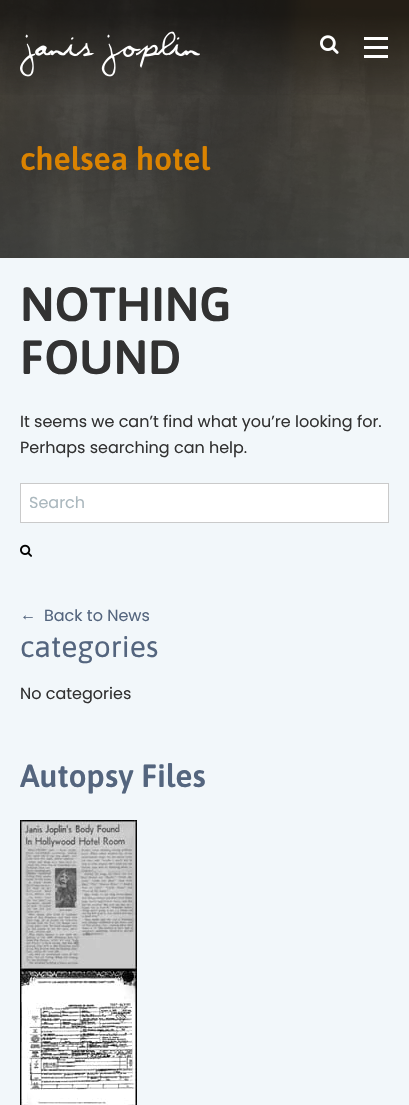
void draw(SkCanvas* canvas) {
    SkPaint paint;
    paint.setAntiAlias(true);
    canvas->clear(0xFFF2F7FA);
    {
        const SkColor colors[] = {0xFF44545C, 0xFF5C4C33, 0xFF335265, 0xFF5C4626};
        const float stops[] = {0, 0.33f, 0.67f, 1};
        const SkPoint ends[] = {{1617, 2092}, {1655, -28}};
        paint.setShader(SkGradientShader::MakeLinear(ends, colors, stops, 4, SkTileMode::kClamp));
        paint.setAlpha(255);
    }
    canvas->drawRect(SkRect::MakeXYWH(0, 0, 409, 258), paint);
    canvas->drawImageRect(SkImages::DeferredFromEncodedData(SkData::MakeFromFileName("img3.png")), SkRect::MakeXYWH(0, 0, 409, 258), SkSamplingOptions());
    {
        const SkColor colors[] = {0x00000000, 0x8C000000};
        const float stops[] = {0, 0.85f};
        const SkPoint ends[] = {{205, 100}, {205, 0}};
        paint.setShader(SkGradientShader::MakeLinear(ends, colors, stops, 2, SkTileMode::kClamp));
        paint.setAlpha(255);
    }
    canvas->drawRect(SkRect::MakeXYWH(0, 0, 409, 95), paint);
    canvas->drawImageRect(SkImages::DeferredFromEncodedData(SkData::MakeFromFileName("img1.png")), SkRect::MakeXYWH(20, 31, 180, 46), SkSamplingOptions());
    canvas->drawImageRect(SkImages::DeferredFromEncodedData(SkData::MakeFromFileName("img2.png")), SkRect::MakeXYWH(320, 35, 19, 19), SkSamplingOptions());
    paint.setShader(nullptr);
    paint.setColor(0xFFFFFFFF);
    canvas->drawRect(SkRect::MakeXYWH(364, 37, 24, 3), paint);
    canvas->drawRect(SkRect::MakeXYWH(364, 46, 24, 3), paint);
    canvas->drawRect(SkRect::MakeXYWH(364, 55, 24, 3), paint);
    SkFont font1(fontMgr->matchFamilyStyle("Asap", SkFontStyle(600, SkFontStyle::kNormal_Width, SkFontStyle::kUpright_Slant)), 32);
    font1.setSubpixel(true);
    paint.setColor(0xFFDB8300);
    canvas->drawString("chelsea hotel", 20, 170, font1, paint);
    SkFont font2(fontMgr->matchFamilyStyle("Asap", SkFontStyle(600, SkFontStyle::kNormal_Width, SkFontStyle::kUpright_Slant)), 48);
    font2.setSubpixel(true);
    paint.setColor(0xFF323232);
    canvas->drawString("NOTHING", 20, 321, font2, paint);
    canvas->drawString("FOUND", 20, 374, font2, paint);
    SkFont font3(fontMgr->matchFamilyStyle("Poppins", SkFontStyle::Normal()), 16);
    font3.setSubpixel(true);
    canvas->drawString("It seems we can’t find what you’re looking for.", 20, 427, font3, paint);
    canvas->drawString("Perhaps searching can help.", 20, 453, font3, paint);
    paint.setColor(0xFFFFFFFF);
    canvas->drawRect(SkRect::MakeXYWH(20.5f, 483.5f, 368, 39), paint);
    paint.setStyle(SkPaint::kStroke_Style);
    paint.setStrokeWidth(1);
    paint.setColor(0xFFCACACA);
    canvas->drawRect(SkRect::MakeXYWH(20.5f, 483.5f, 368, 39), paint);
    paint.setStyle(SkPaint::kFill_Style);
    paint.setColor(0xFFABB8BE);
    canvas->drawString("Search", 29, 508, font3, paint);
    canvas->drawImageRect(SkImages::DeferredFromEncodedData(SkData::MakeFromFileName("img4.png")), SkRect::MakeXYWH(20, 544, 12, 13), SkSamplingOptions());
    SkFont font4(fontMgr->matchFamilyStyle("Liberation Sans", SkFontStyle::Normal()), 16);
    font4.setSubpixel(true);
    paint.setColor(0xFF54657E);
    canvas->drawString("←", 20, 620, font4, paint);
    canvas->drawString("Back to News", 44, 621, font3, paint);
    SkFont font5(fontMgr->matchFamilyStyle("Asap", SkFontStyle::Normal()), 30);
    font5.setSubpixel(true);
    canvas->drawString("categories", 20, 657, font5, paint);
    paint.setColor(0xFF323232);
    canvas->drawString("No categories", 20, 699, font3, paint);
    paint.setColor(0xFF54657E);
    canvas->drawString("Autopsy Files", 20, 787, font1, paint);
    canvas->drawImageRect(SkImages::DeferredFromEncodedData(SkData::MakeFromFileName("img5.png")), SkRect::MakeXYWH(20, 820, 117, 150), SkSamplingOptions());
    canvas->drawImageRect(SkImages::DeferredFromEncodedData(SkData::MakeFromFileName("img6.png")), SkRect::MakeXYWH(20, 970, 117, 135), SkSamplingOptions());
}
